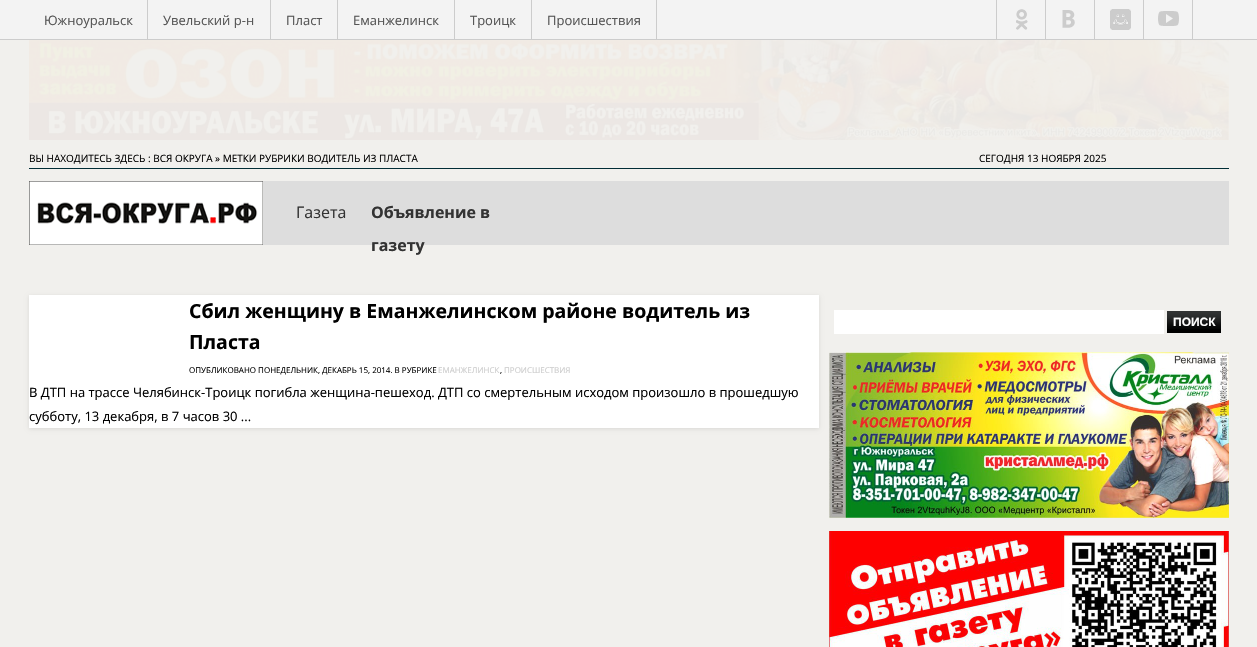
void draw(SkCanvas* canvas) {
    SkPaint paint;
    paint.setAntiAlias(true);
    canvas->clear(0xFFF1F0ED);
    paint.setColor(0xFFF3F3F3);
    canvas->drawRect(SkRect::MakeXYWH(0, 0, 1257, 39), paint);
    paint.setColor(0xFFCCCCCC);
    canvas->drawRect(SkRect::MakeXYWH(0, 39, 1257, 1), paint);
    canvas->drawRect(SkRect::MakeXYWH(147, 0, 1, 39), paint);
    SkFont font1(fontMgr->matchFamilyStyle("Open Sans", SkFontStyle::Normal()), 13);
    font1.setSubpixel(true);
    paint.setColor(0xFF555555);
    canvas->drawString("Южноуральск", 44, 25, font1, paint);
    paint.setColor(0xFFCCCCCC);
    canvas->drawRect(SkRect::MakeXYWH(270, 0, 1, 39), paint);
    paint.setColor(0xFF555555);
    canvas->drawString("Увельский р-н", 163, 25, font1, paint);
    paint.setColor(0xFFCCCCCC);
    canvas->drawRect(SkRect::MakeXYWH(337, 0, 1, 39), paint);
    paint.setColor(0xFF555555);
    canvas->drawString("Пласт", 286, 25, font1, paint);
    paint.setColor(0xFFCCCCCC);
    canvas->drawRect(SkRect::MakeXYWH(454, 0, 1, 39), paint);
    paint.setColor(0xFF555555);
    canvas->drawString("Еманжелинск", 353, 25, font1, paint);
    paint.setColor(0xFFCCCCCC);
    canvas->drawRect(SkRect::MakeXYWH(531, 0, 1, 39), paint);
    paint.setColor(0xFF555555);
    canvas->drawString("Троицк", 470, 25, font1, paint);
    paint.setColor(0xFFCCCCCC);
    canvas->drawRect(SkRect::MakeXYWH(656, 0, 1, 39), paint);
    paint.setColor(0xFF555555);
    canvas->drawString("Происшествия", 547, 25, font1, paint);
    paint.setColor(0xFFCCCCCC);
    canvas->drawRect(SkRect::MakeXYWH(996, 0, 1, 39), paint);
    canvas->drawImageRect(SkImages::DeferredFromEncodedData(SkData::MakeFromFileName("img1.png")), SkRect::MakeXYWH(1016, 9, 12, 21), SkSamplingOptions());
    canvas->drawRect(SkRect::MakeXYWH(1045, 0, 1, 39), paint);
    canvas->drawImageRect(SkImages::DeferredFromEncodedData(SkData::MakeFromFileName("img2.png")), SkRect::MakeXYWH(1062, 10, 13, 18), SkSamplingOptions());
    canvas->drawRect(SkRect::MakeXYWH(1094, 0, 1, 39), paint);
    canvas->drawImageRect(SkImages::DeferredFromEncodedData(SkData::MakeFromFileName("img3.png")), SkRect::MakeXYWH(1110, 9, 21, 21), SkSamplingOptions());
    canvas->drawRect(SkRect::MakeXYWH(1143, 0, 1, 39), paint);
    canvas->drawImageRect(SkImages::DeferredFromEncodedData(SkData::MakeFromFileName("img4.png")), SkRect::MakeXYWH(1158, 11, 21, 15), SkSamplingOptions());
    canvas->drawRect(SkRect::MakeXYWH(1192, 0, 1, 39), paint);
    canvas->drawImageRect(SkImages::DeferredFromEncodedData(SkData::MakeFromFileName("img5.png")), SkRect::MakeXYWH(29, 40, 1200, 100), SkSamplingOptions());
    paint.setColor(0xFF012D36);
    canvas->drawRect(SkRect::MakeXYWH(29, 168, 1200, 1), paint);
    SkFont font2(fontMgr->matchFamilyStyle("Open Sans", SkFontStyle::Normal()), 10);
    font2.setSubpixel(true);
    paint.setColor(0xFF000000);
    canvas->drawString("ВЫ НАХОДИТЕСЬ ЗДЕСЬ : ВСЯ ОКРУГА » МЕТКИ РУБРИКИ ВОДИТЕЛЬ ИЗ ПЛАСТА", 29, 162, font2, paint);
    canvas->drawString("СЕГОДНЯ 13 НОЯБРЯ 2025", 979, 162, font2, paint);
    paint.setColor(0xFFDDDDDD);
    canvas->drawRect(SkRect::MakeXYWH(263, 181, 966, 64), paint);
    canvas->drawImageRect(SkImages::DeferredFromEncodedData(SkData::MakeFromFileName("img6.png")), SkRect::MakeXYWH(29, 181, 234, 64), SkSamplingOptions());
    SkFont font3(fontMgr->matchFamilyStyle("Open Sans", SkFontStyle::Normal()), 16);
    font3.setSubpixel(true);
    paint.setColor(0xFF333333);
    canvas->drawString("Газета", 296, 218, font3, paint);
    SkFont font4(fontMgr->matchFamilyStyle("Open Sans", SkFontStyle::Bold()), 16);
    font4.setSubpixel(true);
    canvas->drawString("Объявление в", 371, 218, font4, paint);
    canvas->drawString("газету", 371, 251, font4, paint);
    paint.setColor(0x1A000000);
    paint.setMaskFilter(SkMaskFilter::MakeBlur(kNormal_SkBlurStyle, 2));
    canvas->drawRect(SkRect::MakeXYWH(29, 296, 790, 133), paint);
    paint.setMaskFilter(nullptr);
    paint.setColor(0xFFFFFFFF);
    canvas->drawRect(SkRect::MakeXYWH(29, 295, 790, 133), paint);
    SkFont font5(fontMgr->matchFamilyStyle("Open Sans", SkFontStyle::Bold()), 19.5f);
    font5.setSubpixel(true);
    paint.setColor(0xFF000000);
    canvas->drawString("Сбил женщину в Еманжелинском районе водитель из", 189, 318, font5, paint);
    canvas->drawString("Пласта", 189, 349, font5, paint);
    SkFont font6(fontMgr->matchFamilyStyle("Open Sans", SkFontStyle::Normal()), 8);
    font6.setSubpixel(true);
    canvas->drawString("ОПУБЛИКОВАНО ПОНЕДЕЛЬНИК, ДЕКАБРЬ 15, 2014. В РУБРИКЕ", 189, 373, font6, paint);
    paint.setColor(0xFFCCCCCC);
    canvas->drawString("ЕМАНЖЕЛИНСК", 438, 373, font6, paint);
    paint.setColor(0xFF000000);
    canvas->drawString(",", 500, 373, font6, paint);
    paint.setColor(0xFFCCCCCC);
    canvas->drawString("ПРОИСШЕСТВИЯ", 504, 373, font6, paint);
    paint.setColor(0xFF000000);
    canvas->drawString("В ДТП на трассе Челябинск-Троицк погибла женщина-пешеход. ДТП со смертельным исходом произошло в прошедшую", 29, 397, font1, paint);
    canvas->drawString("субботу, 13 декабря, в 7 часов 30 ...", 29, 421, font1, paint);
    paint.setColor(0xFFFFFFFF);
    canvas->drawRect(SkRect::MakeXYWH(834, 310, 330, 24), paint);
    paint.setColor(0xFF000000);
    canvas->drawRect(SkRect::MakeXYWH(1167, 329, 54, 4), paint);
    canvas->drawImageRect(SkImages::DeferredFromEncodedData(SkData::MakeFromFileName("img7.png")), SkRect::MakeXYWH(1167, 311, 54, 18), SkSamplingOptions());
    SkFont font7(fontMgr->matchFamilyStyle("Liberation Sans", SkFontStyle::Bold()), 12);
    font7.setSubpixel(true);
    paint.setColor(0xFFFFFFFF);
    canvas->drawString("ПОИСК", 1173, 326, font7, paint);
    canvas->drawImageRect(SkImages::DeferredFromEncodedData(SkData::MakeFromFileName("img8.png")), SkRect::MakeXYWH(829, 352, 400, 166), SkSamplingOptions());
    canvas->drawImageRect(SkImages::DeferredFromEncodedData(SkData::MakeFromFileName("img9.png")), SkRect::MakeXYWH(829, 531, 400, 116), SkSamplingOptions());
}
